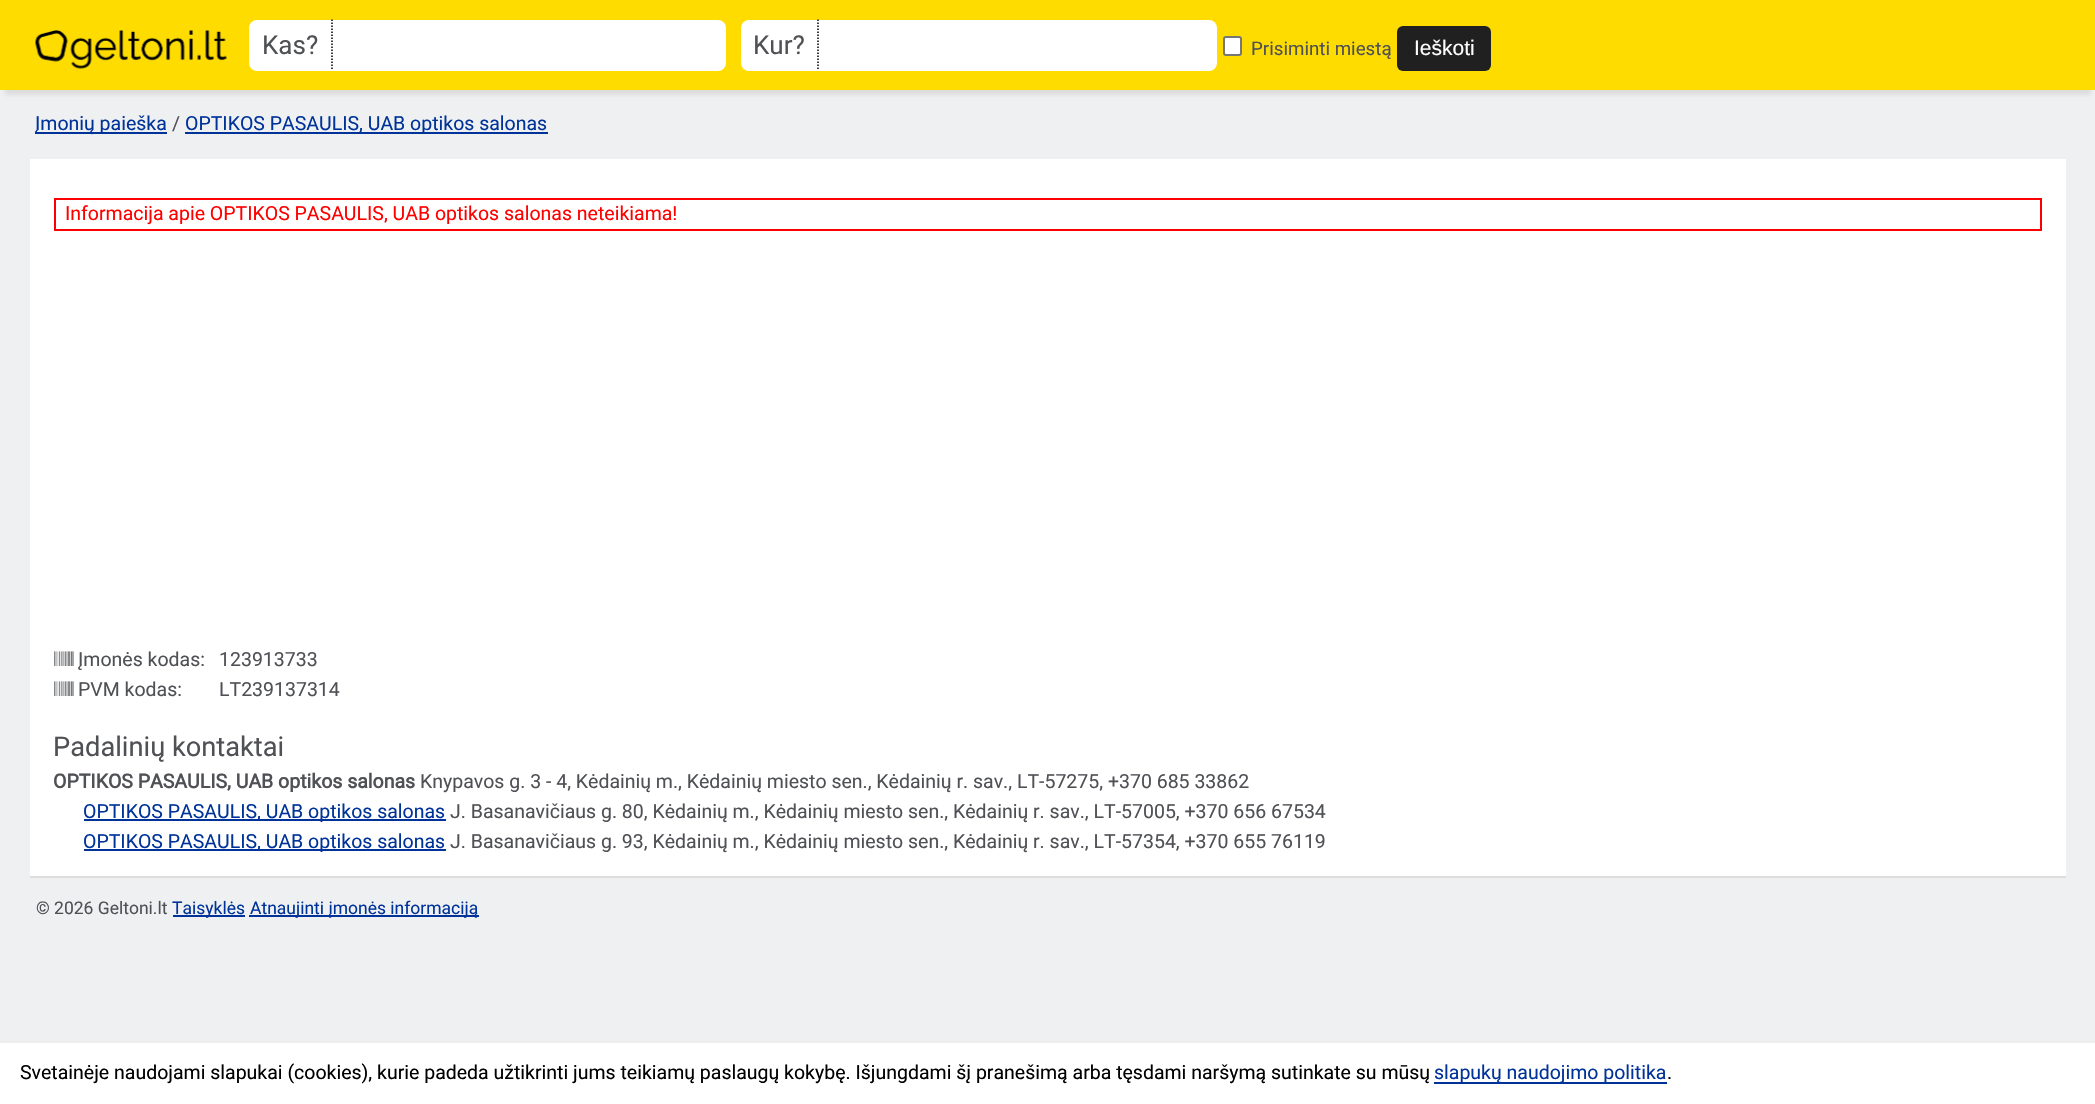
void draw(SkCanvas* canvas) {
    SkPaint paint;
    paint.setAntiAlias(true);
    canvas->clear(0xFFEFF0F1);
    paint.setColor(0xFFDDDDDD);
    paint.setMaskFilter(SkMaskFilter::MakeBlur(kNormal_SkBlurStyle, 2));
    canvas->drawRect(SkRect::MakeXYWH(5, 14, 2086, 81), paint);
    paint.setMaskFilter(nullptr);
    paint.setColor(0xFFFFDC00);
    canvas->drawRect(SkRect::MakeXYWH(0, 0, 2095, 90), paint);
    canvas->drawImageRect(SkImages::DeferredFromEncodedData(SkData::MakeFromFileName("img1.png")), SkRect::MakeXYWH(35, 30, 192, 39), SkSamplingOptions());
    paint.setColor(0xFFFFFFFF);
    canvas->drawRoundRect(SkRect::MakeXYWH(249, 20, 477, 51), 8, 8, paint);
    paint.setStyle(SkPaint::kStroke_Style);
    paint.setStrokeWidth(1.5f);
    paint.setColor(0xFF000000);
    paint.setPathEffect(SkDashPathEffect::Make({{1.5f, 1.5f}}, 0));
    canvas->drawPath(SkPathBuilder().moveTo(332, 19.5f).lineTo(332, 70.5f).detach(), paint);
    paint.setPathEffect(nullptr);
    SkFont font1(fontMgr->matchFamilyStyle("Roboto", SkFontStyle::Normal()), 26);
    font1.setSubpixel(true);
    paint.setStyle(SkPaint::kFill_Style);
    paint.setColor(0xFF4F5155);
    canvas->drawString("Kas?", 262, 54, font1, paint);
    paint.setColor(0xFFFFFFFF);
    canvas->drawRoundRect(SkRect::MakeXYWH(741, 20, 476, 51), 8, 8, paint);
    paint.setStyle(SkPaint::kStroke_Style);
    paint.setColor(0xFF000000);
    paint.setPathEffect(SkDashPathEffect::Make({{1.5f, 1.5f}}, 0));
    canvas->drawPath(SkPathBuilder().moveTo(818, 19.5f).lineTo(818, 70.5f).detach(), paint);
    paint.setPathEffect(nullptr);
    paint.setStyle(SkPaint::kFill_Style);
    paint.setColor(0xFF4F5155);
    canvas->drawString("Kur?", 753, 54, font1, paint);
    paint.setColor(0xFFFFFFFF);
    canvas->drawRoundRect(SkRect::MakeXYWH(1224, 37, 17, 18), 2, 2, paint);
    paint.setStyle(SkPaint::kStroke_Style);
    paint.setStrokeWidth(2);
    paint.setColor(0xFF767676);
    canvas->drawRoundRect(SkRect::MakeXYWH(1224, 37, 17, 18), 2, 2, paint);
    SkFont font2(fontMgr->matchFamilyStyle("Roboto", SkFontStyle::Normal()), 18.75f);
    font2.setSubpixel(true);
    paint.setStyle(SkPaint::kFill_Style);
    paint.setColor(0xFF4F5155);
    canvas->drawString("Prisiminti miestą", 1251, 55, font2, paint);
    paint.setColor(0xFF202020);
    canvas->drawRoundRect(SkRect::MakeXYWH(1397, 26, 94, 45), 6, 6, paint);
    SkFont font3(fontMgr->matchFamilyStyle("Liberation Sans", SkFontStyle::Normal()), 21);
    font3.setSubpixel(true);
    paint.setColor(0xFFFFFFFF);
    canvas->drawString("Ieškoti", 1414, 55, font3, paint);
    paint.setColor(0xFF003399);
    canvas->drawRect(SkRect::MakeXYWH(35, 132, 132, 2), paint);
    SkFont font4(fontMgr->matchFamilyStyle("Roboto", SkFontStyle::Normal()), 19.5f);
    font4.setSubpixel(true);
    canvas->drawString("Įmonių paieška", 35, 130, font4, paint);
    paint.setColor(0xFF4F5155);
    canvas->drawString("/", 172, 130, font4, paint);
    paint.setColor(0xFF003399);
    canvas->drawRect(SkRect::MakeXYWH(185, 132, 363, 2), paint);
    canvas->drawString("OPTIKOS PASAULIS, UAB optikos salonas", 185, 130, font4, paint);
    paint.setColor(0xFFFFFFFF);
    canvas->drawRect(SkRect::MakeXYWH(30, 159, 2036, 717), paint);
    paint.setColor(0xFFDDDDDD);
    canvas->drawRect(SkRect::MakeXYWH(30, 876, 2036, 2), paint);
    paint.setStyle(SkPaint::kStroke_Style);
    paint.setColor(0xFFFF0000);
    canvas->drawRect(SkRect::MakeXYWH(55, 199, 1986, 31), paint);
    paint.setStyle(SkPaint::kFill_Style);
    canvas->drawString("Informacija apie OPTIKOS PASAULIS, UAB optikos salonas neteikiama!", 65, 220, font4, paint);
    canvas->drawImageRect(SkImages::DeferredFromEncodedData(SkData::MakeFromFileName("img2.png")), SkRect::MakeXYWH(54, 651, 20, 15), SkSamplingOptions());
    paint.setColor(0xFF4F5155);
    canvas->drawString("Įmonės kodas:", 78, 666, font4, paint);
    canvas->drawString("123913733", 219, 666, font4, paint);
    canvas->drawImageRect(SkImages::DeferredFromEncodedData(SkData::MakeFromFileName("img2.png")), SkRect::MakeXYWH(54, 681, 20, 15), SkSamplingOptions());
    canvas->drawString("PVM kodas:", 78, 696, font4, paint);
    canvas->drawString("LT239137314", 219, 696, font4, paint);
    SkFont font5(fontMgr->matchFamilyStyle("Roboto", SkFontStyle::Normal()), 27.25f);
    font5.setSubpixel(true);
    canvas->drawString("Padalinių kontaktai", 53, 756, font5, paint);
    SkFont font6(fontMgr->matchFamilyStyle("Roboto", SkFontStyle::Bold()), 19.5f);
    font6.setSubpixel(true);
    canvas->drawString("OPTIKOS PASAULIS, UAB optikos salonas", 53, 788, font6, paint);
    canvas->drawString("Knypavos g. 3 - 4, Kėdainių m., Kėdainių miesto sen., Kėdainių r. sav., LT-57275, +370 685 33862", 420, 788, font4, paint);
    paint.setColor(0xFF003399);
    canvas->drawRect(SkRect::MakeXYWH(84, 819, 362, 2), paint);
    canvas->drawString("OPTIKOS PASAULIS, UAB optikos salonas", 83, 818, font4, paint);
    paint.setColor(0xFF4F5155);
    canvas->drawString("J. Basanavičiaus g. 80, Kėdainių m., Kėdainių miesto sen., Kėdainių r. sav., LT-57005, +370 656 67534", 450, 818, font4, paint);
    paint.setColor(0xFF003399);
    canvas->drawRect(SkRect::MakeXYWH(84, 849, 362, 2), paint);
    canvas->drawString("OPTIKOS PASAULIS, UAB optikos salonas", 83, 848, font4, paint);
    paint.setColor(0xFF4F5155);
    canvas->drawString("J. Basanavičiaus g. 93, Kėdainių m., Kėdainių miesto sen., Kėdainių r. sav., LT-57354, +370 655 76119", 450, 848, font4, paint);
    SkFont font7(fontMgr->matchFamilyStyle("Roboto", SkFontStyle::Normal()), 17.5f);
    font7.setSubpixel(true);
    canvas->drawString("© 2026 Geltoni.lt", 36, 914, font7, paint);
    paint.setColor(0xFF003399);
    canvas->drawRect(SkRect::MakeXYWH(173, 915, 72, 2), paint);
    canvas->drawString("Taisyklės", 172, 914, font7, paint);
    canvas->drawRect(SkRect::MakeXYWH(249, 915, 230, 2), paint);
    canvas->drawString("Atnaujinti įmonės informaciją", 250, 914, font7, paint);
    paint.setColor(0xFFFFFFFF);
    canvas->drawRect(SkRect::MakeXYWH(0, 1043, 2095, 61), paint);
    paint.setColor(0xFFEEEEEE);
    canvas->drawRect(SkRect::MakeXYWH(0, 1041, 2095, 2), paint);
    paint.setColor(0xFF000000);
    canvas->drawString("Svetainėje naudojami slapukai (cookies), kurie padeda užtikrinti jums teikiamų paslaugų kokybę. Išjungdami šį pranešimą arba tęsdami naršymą sutinkate su mūsų", 20, 1079, font4, paint);
    paint.setColor(0xFF003399);
    canvas->drawRect(SkRect::MakeXYWH(1434, 1082, 233, 2), paint);
    canvas->drawString("slapukų naudojimo politika", 1434, 1079, font4, paint);
    paint.setColor(0xFF000000);
    canvas->drawString(".", 1667, 1079, font4, paint);
}
